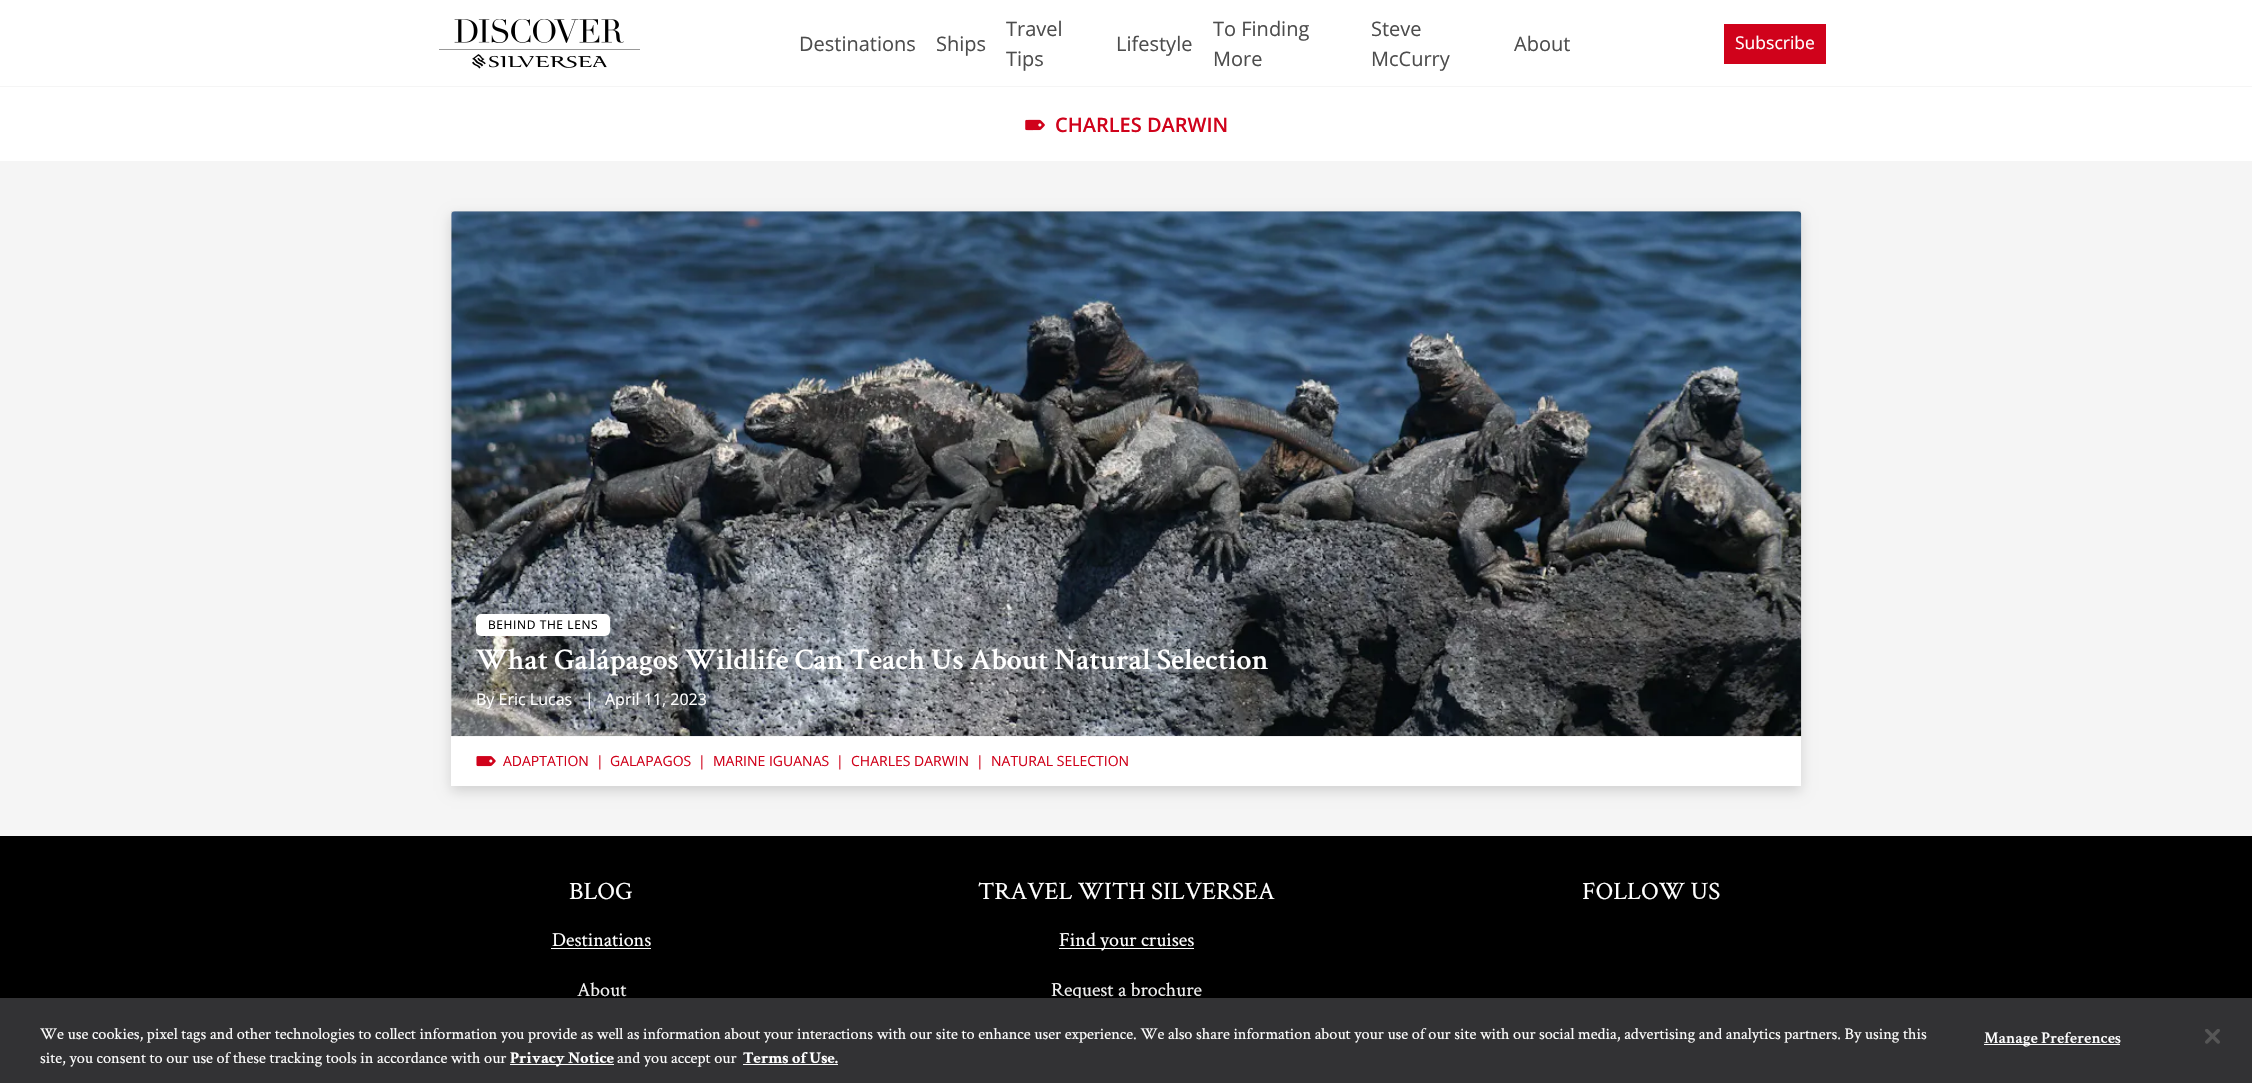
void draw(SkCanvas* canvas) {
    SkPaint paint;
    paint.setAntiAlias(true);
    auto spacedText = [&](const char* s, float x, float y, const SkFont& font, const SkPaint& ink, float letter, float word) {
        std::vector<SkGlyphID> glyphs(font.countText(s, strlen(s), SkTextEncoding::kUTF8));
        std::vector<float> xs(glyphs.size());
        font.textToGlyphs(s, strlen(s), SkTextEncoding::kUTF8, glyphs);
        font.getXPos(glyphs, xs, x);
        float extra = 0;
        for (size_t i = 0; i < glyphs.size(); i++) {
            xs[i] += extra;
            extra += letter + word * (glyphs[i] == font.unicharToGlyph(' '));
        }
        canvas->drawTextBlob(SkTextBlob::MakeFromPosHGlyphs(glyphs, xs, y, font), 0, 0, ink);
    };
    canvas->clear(0xFFF5F5F5);
    paint.setColor(0xFFFFFFFF);
    canvas->drawRect(SkRect::MakeXYWH(0, 0, 2252, 86), paint);
    canvas->drawImageRect(SkImages::DeferredFromEncodedData(SkData::MakeFromFileName("img1.png")), SkRect::MakeXYWH(439, 19, 201, 50), SkSamplingOptions());
    SkFont font1(fontMgr->matchFamilyStyle("Open Sans", SkFontStyle::Normal()), 20);
    font1.setSubpixel(true);
    paint.setColor(0xFF4D4D4D);
    canvas->drawString("Destinations", 799, 51, font1, paint);
    canvas->drawString("Ships", 936, 51, font1, paint);
    canvas->drawString("Travel", 1006, 36, font1, paint);
    canvas->drawString("Tips", 1006, 66, font1, paint);
    canvas->drawString("Lifestyle", 1116, 51, font1, paint);
    canvas->drawString("To Finding", 1213, 36, font1, paint);
    canvas->drawString("More", 1213, 66, font1, paint);
    canvas->drawString("Steve", 1371, 36, font1, paint);
    canvas->drawString("McCurry", 1371, 66, font1, paint);
    canvas->drawString("About", 1514, 51, font1, paint);
    paint.setColor(0xFFD0021B);
    canvas->drawRect(SkRect::MakeXYWH(1724, 24, 102, 40), paint);
    SkFont font2(fontMgr->matchFamilyStyle("Open Sans", SkFontStyle::Normal()), 17.5f);
    font2.setSubpixel(true);
    paint.setColor(0xFFFFFFFF);
    canvas->drawString("Subscribe", 1735, 49, font2, paint);
    canvas->drawRect(SkRect::MakeXYWH(0, 87, 2252, 74), paint);
    canvas->drawImageRect(SkImages::DeferredFromEncodedData(SkData::MakeFromFileName("img2.png")), SkRect::MakeXYWH(1025, 119, 20, 12), SkSamplingOptions());
    SkFont font3(fontMgr->matchFamilyStyle("Open Sans", SkFontStyle(600, SkFontStyle::kNormal_Width, SkFontStyle::kUpright_Slant)), 20);
    font3.setSubpixel(true);
    paint.setColor(0xFFD0021B);
    canvas->drawString("CHARLES DARWIN", 1055, 132, font3, paint);
    paint.setColor(0xFFFFFFFF);
    canvas->drawRect(SkRect::MakeXYWH(451, 736, 1350, 50), paint);
    canvas->drawImageRect(SkImages::DeferredFromEncodedData(SkData::MakeFromFileName("img4.png")), SkRect::MakeXYWH(476, 756, 20, 11), SkSamplingOptions());
    canvas->save();
    canvas->clipPath(SkPathBuilder(SkPathFillType::kEvenOdd).moveTo(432, 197).lineTo(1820, 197).lineTo(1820, 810).lineTo(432, 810).close().moveTo(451, 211).lineTo(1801, 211).lineTo(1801, 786).lineTo(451, 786).close().detach(), true);
    paint.setColor(0x26000000);
    paint.setMaskFilter(SkMaskFilter::MakeBlur(kNormal_SkBlurStyle, 6));
    canvas->drawRect(SkRect::MakeXYWH(451, 216, 1350, 575), paint);
    paint.setMaskFilter(nullptr);
    canvas->restore();
    paint.setColor(0x1A000000);
    canvas->drawRect(SkRect::MakeXYWH(451, 211, 1350, 525), paint);
    canvas->drawImageRect(SkImages::DeferredFromEncodedData(SkData::MakeFromFileName("img3.png")), SkRect::MakeXYWH(451, 211, 1351, 526), SkSamplingOptions());
    paint.setColor(0xFFFFFFFF);
    canvas->drawRoundRect(SkRect::MakeXYWH(476, 614, 134, 22), 5, 5, paint);
    SkFont font4(fontMgr->matchFamilyStyle("Open Sans", SkFontStyle::Normal()), 12);
    font4.setSubpixel(true);
    paint.setColor(0xFF000000);
    spacedText("BEHIND THE LENS", 488, 629, font4, paint, 0.6f, 0);
    SkFont font5(fontMgr->matchFamilyStyle("Crimson Text", SkFontStyle(600, SkFontStyle::kNormal_Width, SkFontStyle::kUpright_Slant)), 30);
    font5.setSubpixel(true);
    paint.setColor(0xFFFFFFFF);
    canvas->drawString("What Galápagos Wildlife Can Teach Us About Natural Selection", 476, 669, font5, paint);
    SkFont font6(fontMgr->matchFamilyStyle("Open Sans", SkFontStyle::Normal()), 16);
    font6.setSubpixel(true);
    canvas->drawString("By Eric Lucas", 476, 705, font6, paint);
    canvas->drawString("|", 585, 705, font6, paint);
    canvas->drawString("April 11, 2023", 605, 705, font6, paint);
    SkFont font7(fontMgr->matchFamilyStyle("Open Sans", SkFontStyle::Normal()), 14);
    font7.setSubpixel(true);
    paint.setColor(0xFFD0021B);
    canvas->drawString("ADAPTATION", 503, 766, font7, paint);
    canvas->drawString("|", 596, 766, font7, paint);
    canvas->drawString("GALAPAGOS", 610, 766, font7, paint);
    canvas->drawString("|", 698, 766, font7, paint);
    canvas->drawString("MARINE IGUANAS", 713, 766, font7, paint);
    canvas->drawString("|", 836, 766, font7, paint);
    canvas->drawString("CHARLES DARWIN", 851, 766, font7, paint);
    canvas->drawString("|", 976, 766, font7, paint);
    canvas->drawString("NATURAL SELECTION", 991, 766, font7, paint);
    paint.setColor(0xFF000000);
    canvas->drawRect(SkRect::MakeXYWH(0, 836, 2252, 162), paint);
    SkFont font8(fontMgr->matchFamilyStyle("Crimson Text", SkFontStyle::Normal()), 25);
    font8.setSubpixel(true);
    paint.setColor(0xFFFFFFFF);
    canvas->drawString("BLOG", 569, 899, font8, paint);
    SkFont font9(fontMgr->matchFamilyStyle("Crimson Text", SkFontStyle::Normal()), 20);
    font9.setSubpixel(true);
    canvas->drawString("Destinations", 552, 946, font9, paint);
    canvas->drawRect(SkRect::MakeXYWH(551, 948, 100, 1), paint);
    canvas->drawString("About", 577, 996, font9, paint);
    canvas->drawString("TRAVEL WITH SILVERSEA", 978, 899, font8, paint);
    canvas->drawRect(SkRect::MakeXYWH(1059, 948, 135, 1), paint);
    canvas->drawString("Find your cruises", 1059, 946, font9, paint);
    canvas->drawString("Request a brochure", 1051, 996, font9, paint);
    canvas->drawString("FOLLOW US", 1582, 899, font8, paint);
    paint.setColor(0x33000000);
    paint.setMaskFilter(SkMaskFilter::MakeBlur(kNormal_SkBlurStyle, 11));
    canvas->drawRect(SkRect::MakeXYWH(0, 998, 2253, 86), paint);
    paint.setMaskFilter(nullptr);
    paint.setColor(0xFF323234);
    canvas->drawRect(SkRect::MakeXYWH(0, 998, 2252, 85), paint);
    SkFont font10(fontMgr->matchFamilyStyle("Crimson Text", SkFontStyle::Normal()), 16.26f);
    font10.setSubpixel(true);
    paint.setColor(0xFFFFFFFF);
    canvas->drawString("We use cookies, pixel tags and other technologies to collect information you provide as well as information about your interactions with our site to enhance user experience. We also share information about your use of our site with our social media, advertising and analytics partners. By using this", 40, 1039, font10, paint);
    canvas->drawString("site, you consent to our use of these tracking tools in accordance with our", 40, 1063, font10, paint);
    paint.setColor(0xFFFCFCFD);
    canvas->drawRect(SkRect::MakeXYWH(510, 1064, 104, 1), paint);
    SkFont font11(fontMgr->matchFamilyStyle("Crimson Text", SkFontStyle::Bold()), 16.26f);
    font11.setSubpixel(true);
    paint.setColor(0xFFFFFFFF);
    canvas->drawString("Privacy Notice", 510, 1063, font11, paint);
    canvas->drawString("and you accept our", 617, 1063, font10, paint);
    canvas->drawString("Terms of Use.", 743, 1063, font11, paint);
    paint.setColor(0xFFFCFCFD);
    canvas->drawRect(SkRect::MakeXYWH(743, 1064, 95, 1), paint);
    canvas->drawRect(SkRect::MakeXYWH(1984, 1044, 136, 1), paint);
    SkFont font12(fontMgr->matchFamilyStyle("Crimson Text", SkFontStyle(600, SkFontStyle::kNormal_Width, SkFontStyle::kUpright_Slant)), 16.26f);
    font12.setSubpixel(true);
    paint.setColor(0xFFFFFFFF);
    spacedText("Manage Preferences", 1984, 1043, font12, paint, 0.2f, 0);
    canvas->drawImageRect(SkImages::DeferredFromEncodedData(SkData::MakeFromFileName("img5.png")), SkRect::MakeXYWH(2205, 1029, 15, 15), SkSamplingOptions());
}
